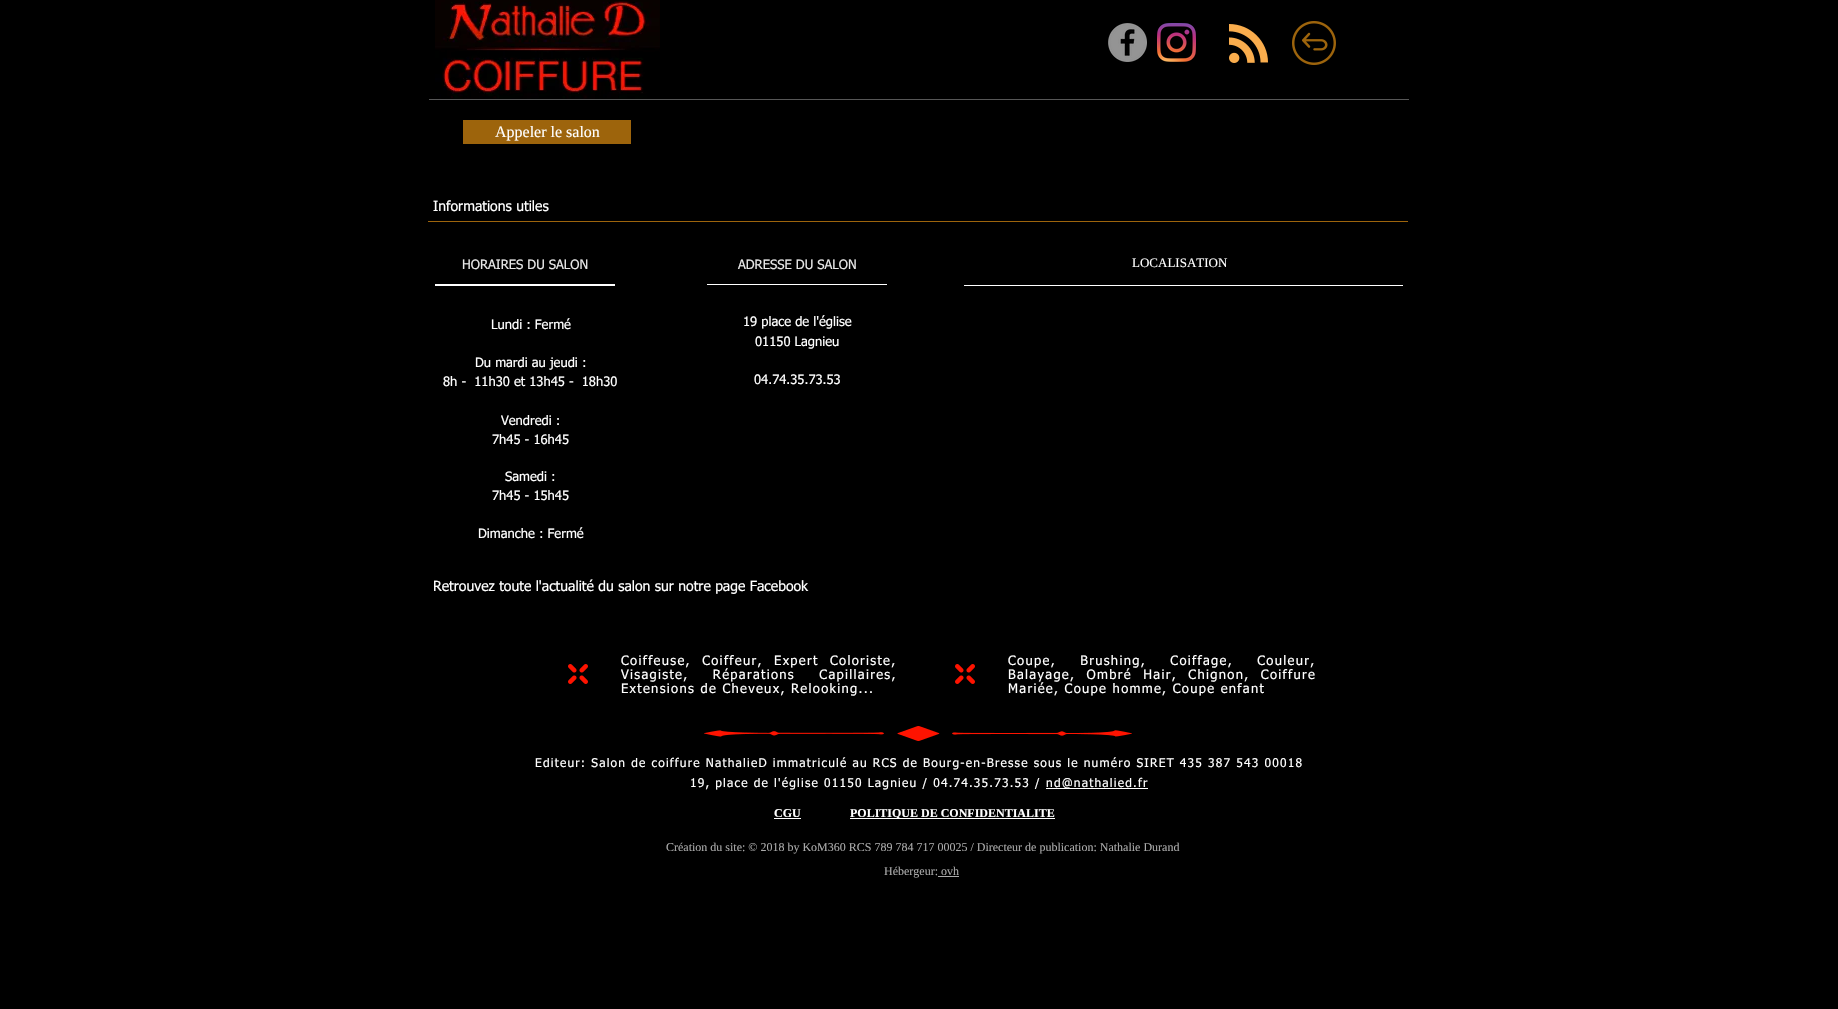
void draw(SkCanvas* canvas) {
    SkPaint paint;
    paint.setAntiAlias(true);
    auto spacedText = [&](const char* s, float x, float y, const SkFont& font, const SkPaint& ink, float letter, float word) {
        std::vector<SkGlyphID> glyphs(font.countText(s, strlen(s), SkTextEncoding::kUTF8));
        std::vector<float> xs(glyphs.size());
        font.textToGlyphs(s, strlen(s), SkTextEncoding::kUTF8, glyphs);
        font.getXPos(glyphs, xs, x);
        float extra = 0;
        for (size_t i = 0; i < glyphs.size(); i++) {
            xs[i] += extra;
            extra += letter + word * (glyphs[i] == font.unicharToGlyph(' '));
        }
        canvas->drawTextBlob(SkTextBlob::MakeFromPosHGlyphs(glyphs, xs, y, font), 0, 0, ink);
    };
    canvas->clear(0xFF000000);
    canvas->drawImageRect(SkImages::DeferredFromEncodedData(SkData::MakeFromFileName("img1.png")), SkRect::MakeXYWH(435, 0, 225, 99), SkSamplingOptions());
    canvas->drawImageRect(SkImages::DeferredFromEncodedData(SkData::MakeFromFileName("img2.png")), SkRect::MakeXYWH(1108, 23, 39, 39), SkSamplingOptions());
    canvas->drawImageRect(SkImages::DeferredFromEncodedData(SkData::MakeFromFileName("img3.png")), SkRect::MakeXYWH(1157, 23, 39, 39), SkSamplingOptions());
    canvas->drawImageRect(SkImages::DeferredFromEncodedData(SkData::MakeFromFileName("img4.png")), SkRect::MakeXYWH(1229, 24, 39, 39), SkSamplingOptions());
    canvas->drawImageRect(SkImages::DeferredFromEncodedData(SkData::MakeFromFileName("img5.png")), SkRect::MakeXYWH(1292, 21, 44, 44), SkSamplingOptions());
    paint.setColor(0xFF575757);
    canvas->drawRect(SkRect::MakeXYWH(429, 99, 980, 1), paint);
    paint.setColor(0xFF9D640C);
    canvas->drawRect(SkRect::MakeXYWH(463, 120, 168, 24), paint);
    SkFont font1(fontMgr->matchFamilyStyle("Liberation Serif", SkFontStyle::Normal()), 16);
    font1.setSubpixel(true);
    paint.setColor(0xFFFFFFFF);
    canvas->drawString("Appeler le salon", 495, 137, font1, paint);
    SkFont font2(fontMgr->matchFamilyStyle("tahoma", SkFontStyle::Normal()), 14);
    font2.setSubpixel(true);
    canvas->drawString("Informations utiles", 433, 211, font2, paint);
    paint.setColor(0xFF9D640C);
    canvas->drawRect(SkRect::MakeXYWH(428, 221, 980, 1), paint);
    SkFont font3(fontMgr->matchFamilyStyle("tahoma", SkFontStyle::Normal()), 13);
    font3.setSubpixel(true);
    paint.setColor(0xFFE8E8E8);
    canvas->drawString("HORAIRES DU SALON", 462, 269, font3, paint);
    canvas->drawString("ADRESSE DU SALON", 738, 269, font3, paint);
    SkFont font4(fontMgr->matchFamilyStyle("Liberation Serif", SkFontStyle::Normal()), 13);
    font4.setSubpixel(true);
    paint.setColor(0xFFFFFFFF);
    canvas->drawString("LOCALISATION", 1132, 267, font4, paint);
    canvas->drawRect(SkRect::MakeXYWH(435, 284, 180, 2), paint);
    canvas->drawRect(SkRect::MakeXYWH(707, 284, 180, 1), paint);
    canvas->drawRect(SkRect::MakeXYWH(964, 285, 439, 1), paint);
    canvas->drawString("Lundi : Fermé", 491, 329, font3, paint);
    canvas->drawString("Du mardi au jeudi :", 475, 367, font3, paint);
    canvas->drawString("8h -  11h30 et 13h45 -  18h30", 443, 386, font3, paint);
    canvas->drawString("Vendredi :", 501, 425, font3, paint);
    canvas->drawString("7h45 - 16h45", 492, 444, font3, paint);
    canvas->drawString("Samedi :", 505, 481, font3, paint);
    canvas->drawString("7h45 - 15h45", 492, 500, font3, paint);
    canvas->drawString("Dimanche : Fermé", 478, 538, font3, paint);
    canvas->drawString("19 place de l'église", 743, 326, font3, paint);
    canvas->drawString("01150 Lagnieu", 755, 346, font3, paint);
    canvas->drawString("04.74.35.73.53", 754, 384, font3, paint);
    canvas->drawString("Retrouvez toute l'actualité du salon sur notre page Facebook", 433, 591, font2, paint);
    canvas->drawImageRect(SkImages::DeferredFromEncodedData(SkData::MakeFromFileName("img6.png")), SkRect::MakeXYWH(568, 664, 20, 20), SkSamplingOptions());
    spacedText("Coiffeuse, Coiffeur, Expert Coloriste,", 621, 665, font3, paint, 1.3f, 6);
    spacedText("Visagiste, Réparations Capillaires,", 621, 679, font3, paint, 1.3f, 19);
    spacedText("Extensions de Cheveux, Relooking...", 621, 693, font3, paint, 1.3f, 0);
    canvas->drawImageRect(SkImages::DeferredFromEncodedData(SkData::MakeFromFileName("img6.png")), SkRect::MakeXYWH(955, 664, 20, 20), SkSamplingOptions());
    spacedText("Coupe, Brushing, Coiffage, Couleur,", 1008, 665, font3, paint, 1.3f, 19);
    spacedText("Balayage, Ombré Hair, Chignon, Coiffure", 1008, 679, font3, paint, 1.3f, 6);
    spacedText("Mariée, Coupe homme, Coupe enfant", 1008, 693, font3, paint, 1.3f, 0);
    canvas->drawImageRect(SkImages::DeferredFromEncodedData(SkData::MakeFromFileName("img7.png")), SkRect::MakeXYWH(704, 726, 428, 15), SkSamplingOptions());
    SkFont font5(fontMgr->matchFamilyStyle("tahoma", SkFontStyle::Normal()), 12);
    font5.setSubpixel(true);
    spacedText("Editeur: Salon de coiffure NathalieD immatriculé au RCS de Bourg-en-Bresse sous le numéro SIRET 435 387 543 00018", 535, 767, font5, paint, 1.2f, 0);
    spacedText("19, place de l'église 01150 Lagnieu / 04.74.35.73.53 /", 690, 787, font5, paint, 1.2f, 0);
    canvas->drawRect(SkRect::MakeXYWH(1046, 788, 102, 1), paint);
    spacedText("nd@nathalied.fr", 1046, 787, font5, paint, 1.2f, 0);
    SkFont font6(fontMgr->matchFamilyStyle("Liberation Serif", SkFontStyle::Bold()), 12);
    font6.setSubpixel(true);
    canvas->drawString("CGU", 774, 817, font6, paint);
    canvas->drawRect(SkRect::MakeXYWH(774, 818, 27, 1), paint);
    canvas->drawRect(SkRect::MakeXYWH(850, 818, 205, 1), paint);
    canvas->drawString("POLITIQUE DE CONFIDENTIALITE", 850, 817, font6, paint);
    SkFont font7(fontMgr->matchFamilyStyle("Liberation Serif", SkFontStyle::Normal()), 12);
    font7.setSubpixel(true);
    paint.setColor(0xFFABABAB);
    canvas->drawString("Création du site: © 2018 by KoM360 RCS 789 784 717 00025 / Directeur de publication: Nathalie Durand", 666, 851, font7, paint);
    canvas->drawString("Hébergeur: ovh", 884, 875, font7, paint);
    canvas->drawRect(SkRect::MakeXYWH(938, 876, 21, 1), paint);
}
